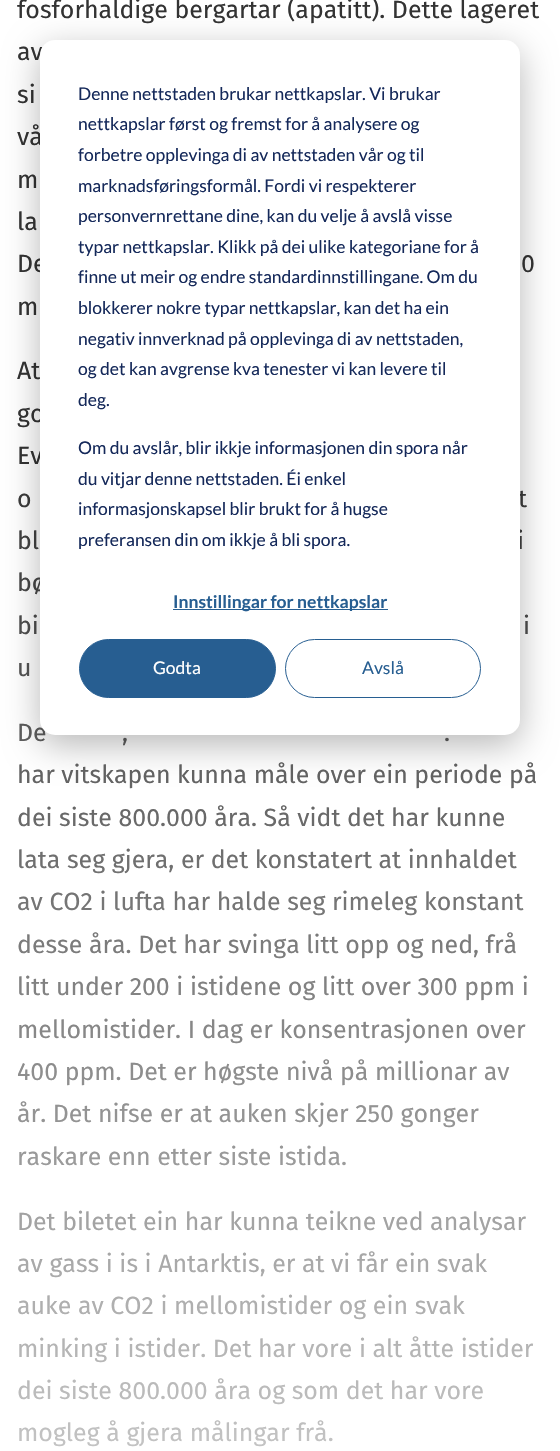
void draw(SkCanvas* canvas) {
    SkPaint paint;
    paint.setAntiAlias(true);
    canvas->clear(0xFFFFFFFF);
    SkFont font1(fontMgr->matchFamilyStyle("Fira Sans", SkFontStyle::Normal()), 24.9f);
    font1.setSubpixel(true);
    paint.setColor(0xFF333333);
    canvas->drawString("fosforhaldige bergartar (apatitt). Dette lageret", 17, 18, font1, paint);
    canvas->drawString("av", 17, 60, font1, paint);
    canvas->drawString("si", 17, 103, font1, paint);
    canvas->drawString("vå", 17, 145, font1, paint);
    canvas->drawString("m", 17, 188, font1, paint);
    canvas->drawString("la", 17, 230, font1, paint);
    canvas->drawString("De", 17, 272, font1, paint);
    canvas->drawString("0", 521, 272, font1, paint);
    canvas->drawString("m", 17, 315, font1, paint);
    canvas->drawString("At", 17, 379, font1, paint);
    canvas->drawString("go", 17, 422, font1, paint);
    canvas->drawString("Ev", 17, 464, font1, paint);
    canvas->drawString("o", 17, 507, font1, paint);
    canvas->drawString("t", 518, 507, font1, paint);
    canvas->drawString("bl", 17, 549, font1, paint);
    canvas->drawString("i", 517, 549, font1, paint);
    canvas->drawString("bø", 17, 591, font1, paint);
    canvas->drawString("bi", 17, 634, font1, paint);
    canvas->drawString("i", 523, 634, font1, paint);
    canvas->drawString("u", 17, 676, font1, paint);
    canvas->drawString("De", 17, 741, font1, paint);
    canvas->drawString(",", 122, 741, font1, paint);
    canvas->drawString(".", 444, 741, font1, paint);
    canvas->drawString("har vitskapen kunna måle over ein periode på", 17, 783, font1, paint);
    canvas->drawString("dei siste 800.000 åra. Så vidt det har kunne", 17, 826, font1, paint);
    canvas->drawString("lata seg gjera, er det konstatert at innhaldet", 17, 868, font1, paint);
    canvas->drawString("av CO2 i lufta har halde seg rimeleg konstant", 17, 910, font1, paint);
    canvas->drawString("desse åra. Det har svinga litt opp og ned, frå", 17, 953, font1, paint);
    canvas->drawString("litt under 200 i istidene og litt over 300 ppm i", 17, 995, font1, paint);
    canvas->drawString("mellomistider. I dag er konsentrasjonen over", 17, 1038, font1, paint);
    canvas->drawString("400 ppm. Det er høgste nivå på millionar av", 17, 1080, font1, paint);
    canvas->drawString("år. Det nifse er at auken skjer 250 gonger", 17, 1122, font1, paint);
    canvas->drawString("raskare enn etter siste istida.", 17, 1165, font1, paint);
    canvas->drawString("Det biletet ein har kunna teikne ved analysar", 17, 1230, font1, paint);
    canvas->drawString("av gass i is i Antarktis, er at vi får ein svak", 17, 1272, font1, paint);
    canvas->drawString("auke av CO2 i mellomistider og ein svak", 17, 1314, font1, paint);
    canvas->drawString("minking i istider. Det har vore i alt åtte istider", 17, 1357, font1, paint);
    canvas->drawString("dei siste 800.000 åra og som det har vore", 17, 1399, font1, paint);
    canvas->drawString("mogleg å gjera målingar frå.", 17, 1441, font1, paint);
    {
        const SkColor colors[] = {0xFFFFFFFF, 0x00FFFFFF, 0x00FFFFFF};
        const float stops[] = {0, 0.6f, 1};
        const SkPoint ends[] = {{280, 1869}, {280, -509}};
        paint.setShader(SkGradientShader::MakeLinear(ends, colors, stops, 3, SkTileMode::kClamp));
        paint.setAlpha(255);
    }
    canvas->drawRect(SkRect::MakeXYWH(18, 491, 519, 956), paint);
    paint.setShader(nullptr);
    paint.setColor(0x47000000);
    paint.setMaskFilter(SkMaskFilter::MakeBlur(kNormal_SkBlurStyle, 17.5f));
    canvas->drawRoundRect(SkRect::MakeXYWH(40, 50, 480, 695), 15, 15, paint);
    paint.setMaskFilter(nullptr);
    paint.setColor(0xFFFFFFFF);
    canvas->drawRoundRect(SkRect::MakeXYWH(40, 40, 480, 695), 15, 15, paint);
    SkFont font2(fontMgr->matchFamilyStyle("Lato", SkFontStyle::Normal()), 17.5f);
    font2.setSubpixel(true);
    paint.setColor(0xFF15295A);
    canvas->drawString("Denne nettstaden brukar nettkapslar. Vi brukar", 78, 100, font2, paint);
    canvas->drawString("nettkapslar først og fremst for å analysere og", 78, 130, font2, paint);
    canvas->drawString("forbetre opplevinga di av nettstaden vår og til", 78, 161, font2, paint);
    canvas->drawString("marknadsføringsformål. Fordi vi respekterer", 78, 192, font2, paint);
    canvas->drawString("personvernrettane dine, kan du velje å avslå visse", 78, 222, font2, paint);
    canvas->drawString("typar nettkapslar. Klikk på dei ulike kategoriane for å", 78, 253, font2, paint);
    canvas->drawString("finne ut meir og endre standardinnstillingane. Om du", 78, 283, font2, paint);
    canvas->drawString("blokkerer nokre typar nettkapslar, kan det ha ein", 78, 314, font2, paint);
    canvas->drawString("negativ innverknad på opplevinga di av nettstaden,", 78, 345, font2, paint);
    canvas->drawString("og det kan avgrense kva tenester vi kan levere til", 78, 375, font2, paint);
    canvas->drawString("deg.", 78, 406, font2, paint);
    canvas->drawString("Om du avslår, blir ikkje informasjonen din spora når", 78, 454, font2, paint);
    canvas->drawString("du vitjar denne nettstaden. Éi enkel", 78, 485, font2, paint);
    canvas->drawString("informasjonskapsel blir brukt for å hugse", 78, 515, font2, paint);
    canvas->drawString("preferansen din om ikkje å bli spora.", 78, 546, font2, paint);
    paint.setColor(0xFF275E91);
    canvas->drawRect(SkRect::MakeXYWH(173, 609, 215, 1), paint);
    SkFont font3(fontMgr->matchFamilyStyle("Lato", SkFontStyle::Bold()), 17.5f);
    font3.setSubpixel(true);
    canvas->drawString("Innstillingar for nettkapslar", 173, 608, font3, paint);
    canvas->drawRoundRect(SkRect::MakeXYWH(79.5f, 639.5f, 196, 58), 29, 29, paint);
    paint.setStyle(SkPaint::kStroke_Style);
    paint.setStrokeWidth(1);
    canvas->drawRoundRect(SkRect::MakeXYWH(79.5f, 639.5f, 196, 58), 29, 29, paint);
    paint.setStyle(SkPaint::kFill_Style);
    paint.setColor(0xFFFFFFFF);
    canvas->drawString("Godta", 153, 674, font2, paint);
    paint.setStyle(SkPaint::kStroke_Style);
    paint.setColor(0xFF275E91);
    canvas->drawRoundRect(SkRect::MakeXYWH(285.5f, 639.5f, 195, 58), 29, 29, paint);
    paint.setStyle(SkPaint::kFill_Style);
    canvas->drawString("Avslå", 362, 674, font2, paint);
}
